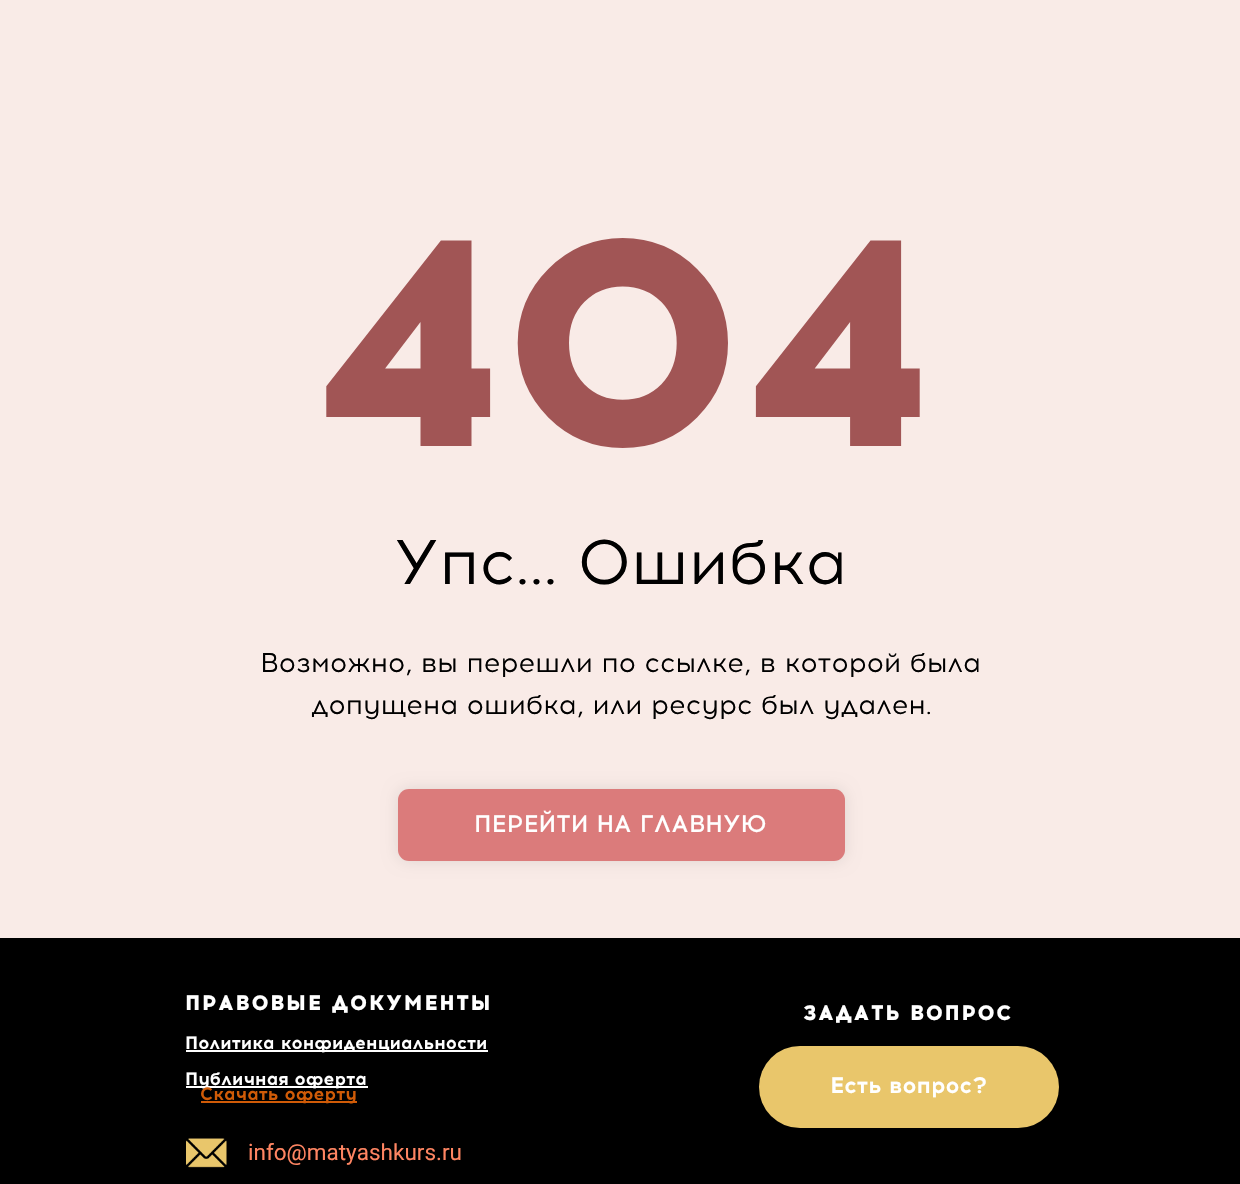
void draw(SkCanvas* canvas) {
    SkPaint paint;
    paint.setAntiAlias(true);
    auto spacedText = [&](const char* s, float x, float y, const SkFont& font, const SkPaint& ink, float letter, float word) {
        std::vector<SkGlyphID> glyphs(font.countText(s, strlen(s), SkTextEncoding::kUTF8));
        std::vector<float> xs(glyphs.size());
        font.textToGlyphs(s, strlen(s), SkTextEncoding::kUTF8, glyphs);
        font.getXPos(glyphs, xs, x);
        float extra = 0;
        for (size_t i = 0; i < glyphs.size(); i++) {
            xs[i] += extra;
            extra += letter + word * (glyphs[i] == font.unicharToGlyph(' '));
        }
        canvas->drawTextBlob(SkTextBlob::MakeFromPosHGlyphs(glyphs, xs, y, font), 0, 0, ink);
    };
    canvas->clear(0xFFF9EBE7);
    SkFont font1(fontMgr->matchFamilyStyle("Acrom", SkFontStyle(800, SkFontStyle::kNormal_Width, SkFontStyle::kUpright_Slant)), 300);
    font1.setSubpixel(true);
    paint.setColor(0xFFA15555);
    canvas->drawString("404", 314, 446, font1, paint);
    SkFont font2(fontMgr->matchFamilyStyle("Acrom", SkFontStyle::Normal()), 63);
    font2.setSubpixel(true);
    paint.setColor(0xFF000000);
    canvas->drawString("Упс... Ошибка", 394, 584, font2, paint);
    SkFont font3(fontMgr->matchFamilyStyle("Acrom", SkFontStyle::Normal()), 27);
    font3.setSubpixel(true);
    canvas->drawString("Возможно, вы перешли по ссылке, в которой была", 260, 672, font3, paint);
    canvas->drawString("допущена ошибка, или ресурс был удален.", 311, 714, font3, paint);
    paint.setColor(0x1A000000);
    paint.setMaskFilter(SkMaskFilter::MakeBlur(kNormal_SkBlurStyle, 7.5f));
    canvas->drawRoundRect(SkRect::MakeXYWH(398, 789, 447, 72), 11, 11, paint);
    paint.setMaskFilter(nullptr);
    paint.setColor(0xFFDB7B7B);
    canvas->drawRoundRect(SkRect::MakeXYWH(398, 789, 447, 72), 11, 11, paint);
    SkFont font4(fontMgr->matchFamilyStyle("Acrom", SkFontStyle(500, SkFontStyle::kNormal_Width, SkFontStyle::kUpright_Slant)), 24);
    font4.setSubpixel(true);
    paint.setColor(0xFFFFFFFF);
    canvas->drawString("ПЕРЕЙТИ НА ГЛАВНУЮ", 474, 832, font4, paint);
    paint.setColor(0xFF000000);
    canvas->drawRect(SkRect::MakeXYWH(0, 938, 1240, 246), paint);
    SkFont font5(fontMgr->matchFamilyStyle("Acrom", SkFontStyle(800, SkFontStyle::kNormal_Width, SkFontStyle::kUpright_Slant)), 21);
    font5.setSubpixel(true);
    paint.setColor(0xFFFFFFFF);
    spacedText("ПРАВОВЫЕ ДОКУМЕНТЫ", 185, 1010, font5, paint, 1.5f, 0);
    spacedText("ЗАДАТЬ ВОПРОС", 803, 1020, font5, paint, 1.5f, 0);
    canvas->drawRect(SkRect::MakeXYWH(186, 1050, 302, 2), paint);
    SkFont font6(fontMgr->matchFamilyStyle("Acrom", SkFontStyle::Bold()), 18);
    font6.setSubpixel(true);
    canvas->drawString("Политика конфиденциальности", 185, 1049, font6, paint);
    canvas->drawRect(SkRect::MakeXYWH(186, 1086, 182, 2), paint);
    canvas->drawString("Публичная оферта", 185, 1085, font6, paint);
    paint.setColor(0xFFE9C66B);
    canvas->drawRoundRect(SkRect::MakeXYWH(759, 1046, 300, 82), 41, 41, paint);
    SkFont font7(fontMgr->matchFamilyStyle("Acrom", SkFontStyle::Bold()), 22.5f);
    font7.setSubpixel(true);
    paint.setColor(0xFFFFFFFF);
    canvas->drawString("Есть вопрос?", 830, 1093, font7, paint);
    paint.setColor(0xFFD05B07);
    canvas->drawRect(SkRect::MakeXYWH(201, 1101, 156, 2), paint);
    canvas->drawString("Скачать оферту", 200, 1100, font6, paint);
    canvas->drawImageRect(SkImages::DeferredFromEncodedData(SkData::MakeFromFileName("img1.png")), SkRect::MakeXYWH(186, 1138, 41, 30), SkSamplingOptions());
    SkFont font8(fontMgr->matchFamilyStyle("Roboto", SkFontStyle::Normal()), 22.5f);
    font8.setSubpixel(true);
    paint.setColor(0xFFFF8562);
    canvas->drawString("info@matyashkurs.ru", 248, 1160, font8, paint);
}
